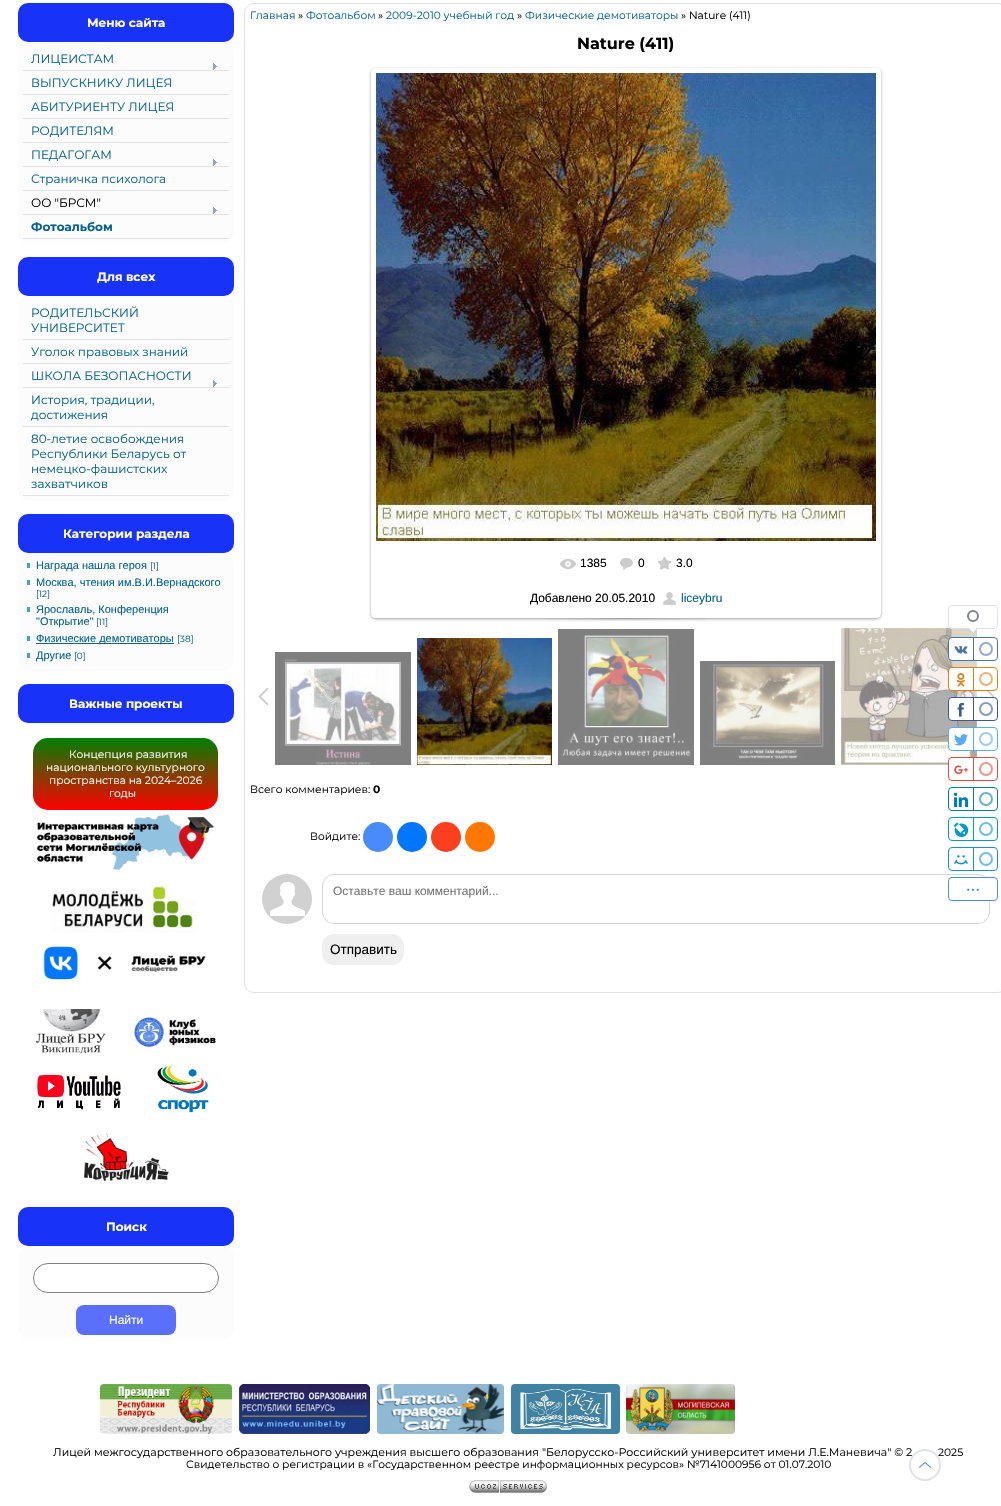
void draw(SkCanvas* canvas) {
    SkPaint paint;
    paint.setAntiAlias(true);
    canvas->clear(0xFFFFFFFF);
    paint.setColor(0xFF1932F7);
    canvas->drawRoundRect(SkRect::MakeXYWH(18, 3, 216, 39), 10, 10, paint);
    SkFont font1(fontMgr->matchFamilyStyle("Montserrat", SkFontStyle::Bold()), 12);
    font1.setSubpixel(true);
    paint.setColor(0xFFFFFFFF);
    canvas->drawString("Меню сайта", 87, 27, font1, paint);
    paint.setColor(0xFFFCFCFC);
    canvas->drawRoundRect(SkRect::MakeXYWH(18, 42, 216, 202), 12, 12, paint);
    paint.setColor(0xFFE5E5E5);
    canvas->drawRect(SkRect::MakeXYWH(23, 70, 206, 1), paint);
    SkFont font2(fontMgr->matchFamilyStyle("Montserrat", SkFontStyle::Normal()), 12);
    font2.setSubpixel(true);
    paint.setColor(0xFF04638E);
    canvas->drawString("ЛИЦЕИСТАМ", 31, 63, font2, paint);
    canvas->drawImageRect(SkImages::DeferredFromEncodedData(SkData::MakeFromFileName("img1.png")), SkRect::MakeXYWH(213, 63, 4, 7), SkSamplingOptions());
    paint.setColor(0xFFE5E5E5);
    canvas->drawRect(SkRect::MakeXYWH(23, 94, 206, 1), paint);
    paint.setColor(0xFF04638E);
    canvas->drawString("ВЫПУСКНИКУ ЛИЦЕЯ", 31, 87, font2, paint);
    paint.setColor(0xFFE5E5E5);
    canvas->drawRect(SkRect::MakeXYWH(23, 118, 206, 1), paint);
    paint.setColor(0xFF04638E);
    canvas->drawString("АБИТУРИЕНТУ ЛИЦЕЯ", 31, 111, font2, paint);
    paint.setColor(0xFFE5E5E5);
    canvas->drawRect(SkRect::MakeXYWH(23, 142, 206, 1), paint);
    paint.setColor(0xFF04638E);
    canvas->drawString("РОДИТЕЛЯМ", 31, 135, font2, paint);
    paint.setColor(0xFFE5E5E5);
    canvas->drawRect(SkRect::MakeXYWH(23, 166, 206, 1), paint);
    paint.setColor(0xFF04638E);
    canvas->drawString("ПЕДАГОГАМ", 31, 159, font2, paint);
    canvas->drawImageRect(SkImages::DeferredFromEncodedData(SkData::MakeFromFileName("img1.png")), SkRect::MakeXYWH(213, 159, 4, 7), SkSamplingOptions());
    paint.setColor(0xFFE5E5E5);
    canvas->drawRect(SkRect::MakeXYWH(23, 190, 206, 1), paint);
    paint.setColor(0xFF04638E);
    canvas->drawString("Страничка психолога", 31, 183, font2, paint);
    paint.setColor(0xFFE5E5E5);
    canvas->drawRect(SkRect::MakeXYWH(23, 214, 206, 1), paint);
    paint.setColor(0xFF000000);
    canvas->drawString("ОО \"БРСМ\"", 31, 207, font2, paint);
    canvas->drawImageRect(SkImages::DeferredFromEncodedData(SkData::MakeFromFileName("img1.png")), SkRect::MakeXYWH(213, 207, 4, 7), SkSamplingOptions());
    paint.setColor(0xFFE5E5E5);
    canvas->drawRect(SkRect::MakeXYWH(23, 238, 206, 1), paint);
    paint.setColor(0xFF04638E);
    canvas->drawString("Фотоальбом", 31, 231, font1, paint);
    paint.setColor(0xFF1932F7);
    canvas->drawRoundRect(SkRect::MakeXYWH(18, 257, 216, 39), 10, 10, paint);
    paint.setColor(0xFFFFFFFF);
    canvas->drawString("Для всех", 97, 281, font1, paint);
    paint.setColor(0xFFFCFCFC);
    canvas->drawRoundRect(SkRect::MakeXYWH(18, 296, 216, 205), 12, 12, paint);
    paint.setColor(0xFFE5E5E5);
    canvas->drawRect(SkRect::MakeXYWH(23, 339, 206, 1), paint);
    paint.setColor(0xFF04638E);
    canvas->drawString("РОДИТЕЛЬСКИЙ", 31, 317, font2, paint);
    canvas->drawString("УНИВЕРСИТЕТ", 31, 332, font2, paint);
    paint.setColor(0xFFE5E5E5);
    canvas->drawRect(SkRect::MakeXYWH(23, 363, 206, 1), paint);
    paint.setColor(0xFF04638E);
    canvas->drawString("Уголок правовых знаний", 31, 356, font2, paint);
    paint.setColor(0xFFE5E5E5);
    canvas->drawRect(SkRect::MakeXYWH(23, 387, 206, 1), paint);
    paint.setColor(0xFF04638E);
    canvas->drawString("ШКОЛА БЕЗОПАСНОСТИ", 31, 380, font2, paint);
    canvas->drawImageRect(SkImages::DeferredFromEncodedData(SkData::MakeFromFileName("img1.png")), SkRect::MakeXYWH(213, 380, 4, 7), SkSamplingOptions());
    paint.setColor(0xFFE5E5E5);
    canvas->drawRect(SkRect::MakeXYWH(23, 426, 206, 1), paint);
    paint.setColor(0xFF04638E);
    canvas->drawString("История, традиции,", 31, 404, font2, paint);
    canvas->drawString("достижения", 31, 419, font2, paint);
    paint.setColor(0xFFE5E5E5);
    canvas->drawRect(SkRect::MakeXYWH(23, 495, 206, 1), paint);
    paint.setColor(0xFF04638E);
    canvas->drawString("80-летие освобождения", 31, 443, font2, paint);
    canvas->drawString("Республики Беларусь от", 31, 458, font2, paint);
    canvas->drawString("немецко-фашистских", 31, 473, font2, paint);
    canvas->drawString("захватчиков", 31, 488, font2, paint);
    paint.setColor(0xFF1932F7);
    canvas->drawRoundRect(SkRect::MakeXYWH(18, 514, 216, 39), 10, 10, paint);
    paint.setColor(0xFFFFFFFF);
    canvas->drawString("Категории раздела", 63, 538, font1, paint);
    paint.setColor(0xFFFCFCFC);
    canvas->drawRoundRect(SkRect::MakeXYWH(18, 553, 216, 118), 12, 12, paint);
    paint.setColor(0xFF40A3CF);
    canvas->drawRect(SkRect::MakeXYWH(27, 563, 3, 5), paint);
    SkFont font3(fontMgr->matchFamilyStyle("Liberation Sans", SkFontStyle::Normal()), 11);
    font3.setSubpixel(true);
    paint.setColor(0xFF04638E);
    canvas->drawString("Награда нашла героя", 36, 569, font3, paint);
    SkFont font4(fontMgr->matchFamilyStyle("Montserrat", SkFontStyle::Normal()), 9);
    font4.setSubpixel(true);
    canvas->drawString("[1]", 150, 569, font4, paint);
    paint.setColor(0xFF40A3CF);
    canvas->drawRect(SkRect::MakeXYWH(27, 580, 3, 5), paint);
    paint.setColor(0xFF04638E);
    canvas->drawString("Москва, чтения им.В.И.Вернадского", 36, 586, font3, paint);
    canvas->drawString("[12]", 36, 597, font4, paint);
    paint.setColor(0xFF40A3CF);
    canvas->drawRect(SkRect::MakeXYWH(27, 607, 3, 5), paint);
    paint.setColor(0xFF04638E);
    canvas->drawString("Ярославль, Конференция", 36, 613, font3, paint);
    canvas->drawString("\"Открытие\"", 36, 625, font3, paint);
    canvas->drawString("[11]", 96, 625, font4, paint);
    paint.setColor(0xFF40A3CF);
    canvas->drawRect(SkRect::MakeXYWH(27, 636, 3, 5), paint);
    paint.setColor(0xFF04638E);
    canvas->drawRect(SkRect::MakeXYWH(36, 643, 138, 1), paint);
    canvas->drawString("Физические демотиваторы", 36, 642, font3, paint);
    canvas->drawString("[38]", 177, 642, font4, paint);
    paint.setColor(0xFF40A3CF);
    canvas->drawRect(SkRect::MakeXYWH(27, 653, 3, 5), paint);
    paint.setColor(0xFF04638E);
    canvas->drawString("Другие", 36, 659, font3, paint);
    canvas->drawString("[0]", 74, 659, font4, paint);
    paint.setColor(0xFF1932F7);
    canvas->drawRoundRect(SkRect::MakeXYWH(18, 684, 216, 39), 10, 10, paint);
    paint.setColor(0xFFFFFFFF);
    canvas->drawString("Важные проекты", 69, 708, font1, paint);
    {
        const SkColor colors[] = {0xFF008000, 0xFFFF0000};
        const float stops[] = {0, 1};
        const SkPoint ends[] = {{126, 738}, {126, 810}};
        paint.setShader(SkGradientShader::MakeLinear(ends, colors, stops, 2, SkTileMode::kClamp));
        paint.setAlpha(255);
    }
    canvas->drawRoundRect(SkRect::MakeXYWH(33, 738, 185, 72), 15, 15, paint);
    SkFont font5(fontMgr->matchFamilyStyle("Montserrat", SkFontStyle::Normal()), 10.67f);
    font5.setSubpixel(true);
    paint.setShader(nullptr);
    paint.setColor(0xFFFFFFFF);
    canvas->drawString("Концепция развития", 69, 758, font5, paint);
    canvas->drawString("национального культурного", 46, 771, font5, paint);
    canvas->drawString("пространства на 2024–2026", 49, 784, font5, paint);
    canvas->drawString("годы", 109, 797, font5, paint);
    canvas->drawImageRect(SkImages::DeferredFromEncodedData(SkData::MakeFromFileName("img2.png")), SkRect::MakeXYWH(37, 814, 177, 57), SkSamplingOptions());
    canvas->drawImageRect(SkImages::DeferredFromEncodedData(SkData::MakeFromFileName("img3.png")), SkRect::MakeXYWH(52, 884, 145, 49), SkSamplingOptions());
    canvas->drawImageRect(SkImages::DeferredFromEncodedData(SkData::MakeFromFileName("img4.png")), SkRect::MakeXYWH(43, 946, 163, 34), SkSamplingOptions());
    canvas->drawImageRect(SkImages::DeferredFromEncodedData(SkData::MakeFromFileName("img5.png")), SkRect::MakeXYWH(36, 1009, 70, 45), SkSamplingOptions());
    canvas->drawImageRect(SkImages::DeferredFromEncodedData(SkData::MakeFromFileName("img6.png")), SkRect::MakeXYWH(134, 1017, 82, 30), SkSamplingOptions());
    canvas->drawImageRect(SkImages::DeferredFromEncodedData(SkData::MakeFromFileName("img7.png")), SkRect::MakeXYWH(37, 1074, 84, 36), SkSamplingOptions());
    canvas->drawImageRect(SkImages::DeferredFromEncodedData(SkData::MakeFromFileName("img8.png")), SkRect::MakeXYWH(144, 1065, 65, 51), SkSamplingOptions());
    canvas->drawImageRect(SkImages::DeferredFromEncodedData(SkData::MakeFromFileName("img9.png")), SkRect::MakeXYWH(84, 1133, 85, 48), SkSamplingOptions());
    paint.setColor(0xFF1932F7);
    canvas->drawRoundRect(SkRect::MakeXYWH(18, 1207, 216, 39), 10, 10, paint);
    paint.setColor(0xFFFFFFFF);
    canvas->drawString("Поиск", 106, 1231, font1, paint);
    paint.setColor(0xFFFCFCFC);
    canvas->drawRoundRect(SkRect::MakeXYWH(18, 1246, 216, 94), 12, 12, paint);
    paint.setColor(0xFFFFFFFF);
    canvas->drawRoundRect(SkRect::MakeXYWH(33.5f, 1263.5f, 185, 29), 14.5f, 14.5f, paint);
    paint.setStyle(SkPaint::kStroke_Style);
    paint.setStrokeWidth(1);
    paint.setColor(0xFF808080);
    canvas->drawRoundRect(SkRect::MakeXYWH(33.5f, 1263.5f, 185, 29), 14.5f, 14.5f, paint);
    paint.setStyle(SkPaint::kFill_Style);
    paint.setColor(0xFF5A70FA);
    canvas->drawRoundRect(SkRect::MakeXYWH(76, 1305, 100, 30), 8, 8, paint);
    SkFont font6(fontMgr->matchFamilyStyle("Liberation Sans", SkFontStyle::Normal()), 12);
    font6.setSubpixel(true);
    paint.setColor(0xFFFFFFFF);
    canvas->drawString("Найти", 109, 1324, font6, paint);
    paint.setStyle(SkPaint::kStroke_Style);
    paint.setColor(0xFFE1E1E1);
    canvas->drawRoundRect(SkRect::MakeXYWH(244.5f, 3.5f, 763, 989), 9.5f, 9.5f, paint);
    paint.setStyle(SkPaint::kFill_Style);
    paint.setColor(0xFF04638E);
    canvas->drawString("Главная", 250, 19, font5, paint);
    paint.setColor(0xFF000000);
    canvas->drawString("»", 298, 19, font5, paint);
    paint.setColor(0xFF04638E);
    canvas->drawString("Фотоальбом", 306, 19, font5, paint);
    paint.setColor(0xFF000000);
    canvas->drawString("»", 378, 19, font5, paint);
    paint.setColor(0xFF04638E);
    canvas->drawString("2009-2010 учебный год", 386, 19, font5, paint);
    paint.setColor(0xFF000000);
    canvas->drawString("»", 517, 19, font5, paint);
    paint.setColor(0xFF04638E);
    canvas->drawString("Физические демотиваторы", 525, 19, font5, paint);
    paint.setColor(0xFF000000);
    canvas->drawString("» Nature (411)", 681, 19, font5, paint);
    SkFont font7(fontMgr->matchFamilyStyle("Montserrat", SkFontStyle::Bold()), 16);
    font7.setSubpixel(true);
    canvas->drawString("Nature (411)", 577, 49, font7, paint);
    canvas->save();
    canvas->clipPath(SkPathBuilder(SkPathFillType::kEvenOdd).moveTo(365, 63).lineTo(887, 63).lineTo(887, 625).lineTo(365, 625).close().moveTo(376, 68).lineTo(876, 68).cubicTo(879, 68, 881, 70, 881, 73).lineTo(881, 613).cubicTo(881, 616, 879, 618, 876, 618).lineTo(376, 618).cubicTo(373, 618, 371, 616, 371, 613).lineTo(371, 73).cubicTo(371, 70, 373, 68, 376, 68).close().detach(), true);
    paint.setColor(0x5E000000);
    paint.setMaskFilter(SkMaskFilter::MakeBlur(kNormal_SkBlurStyle, 1.5f));
    canvas->drawRoundRect(SkRect::MakeXYWH(371, 69, 510, 550), 5, 5, paint);
    paint.setMaskFilter(nullptr);
    canvas->restore();
    canvas->drawImageRect(SkImages::DeferredFromEncodedData(SkData::MakeFromFileName("img10.png")), SkRect::MakeXYWH(376, 73, 500, 468), SkSamplingOptions());
    canvas->drawImageRect(SkImages::DeferredFromEncodedData(SkData::MakeFromFileName("img11.png")), SkRect::MakeXYWH(560, 559, 16, 10), SkSamplingOptions());
    paint.setColor(0xFF000000);
    canvas->drawString("1385", 580, 567, font6, paint);
    canvas->drawImageRect(SkImages::DeferredFromEncodedData(SkData::MakeFromFileName("img12.png")), SkRect::MakeXYWH(620, 558, 13, 12), SkSamplingOptions());
    canvas->drawString("0", 638, 567, font6, paint);
    canvas->drawImageRect(SkImages::DeferredFromEncodedData(SkData::MakeFromFileName("img13.png")), SkRect::MakeXYWH(658, 557, 13, 13), SkSamplingOptions());
    canvas->drawString("3.0", 676, 567, font6, paint);
    canvas->drawString("Добавлено 20.05.2010", 530, 602, font6, paint);
    canvas->drawImageRect(SkImages::DeferredFromEncodedData(SkData::MakeFromFileName("img14.png")), SkRect::MakeXYWH(663, 592, 13, 13), SkSamplingOptions());
    paint.setColor(0xFF04638E);
    canvas->drawString("liceybru", 681, 602, font6, paint);
    canvas->drawImageRect(SkImages::DeferredFromEncodedData(SkData::MakeFromFileName("img15.png")), SkRect::MakeXYWH(546, 618, 161, 3), SkSamplingOptions());
    canvas->drawImageRect(SkImages::DeferredFromEncodedData(SkData::MakeFromFileName("img16.png")), SkRect::MakeXYWH(258, 688, 11, 17), SkSamplingOptions());
    canvas->drawImageRect(SkImages::DeferredFromEncodedData(SkData::MakeFromFileName("img17.png")), SkRect::MakeXYWH(275, 652, 136, 113), SkSamplingOptions());
    canvas->drawImageRect(SkImages::DeferredFromEncodedData(SkData::MakeFromFileName("img18.png")), SkRect::MakeXYWH(417, 638, 135, 127), SkSamplingOptions());
    canvas->drawImageRect(SkImages::DeferredFromEncodedData(SkData::MakeFromFileName("img19.png")), SkRect::MakeXYWH(558, 629, 136, 136), SkSamplingOptions());
    canvas->drawImageRect(SkImages::DeferredFromEncodedData(SkData::MakeFromFileName("img20.png")), SkRect::MakeXYWH(700, 661, 135, 104), SkSamplingOptions());
    canvas->drawImageRect(SkImages::DeferredFromEncodedData(SkData::MakeFromFileName("img21.png")), SkRect::MakeXYWH(841, 628, 136, 137), SkSamplingOptions());
    canvas->drawImageRect(SkImages::DeferredFromEncodedData(SkData::MakeFromFileName("img22.png")), SkRect::MakeXYWH(984, 690, 11, 8), SkSamplingOptions());
    paint.setColor(0xFF000000);
    canvas->drawString("Всего комментариев:", 250, 793, font5, paint);
    SkFont font8(fontMgr->matchFamilyStyle("Montserrat", SkFontStyle::Bold()), 10.67f);
    font8.setSubpixel(true);
    canvas->drawString("0", 373, 793, font8, paint);
    canvas->drawString("Войдите:", 310, 840, font5, paint);
    paint.setColor(0xFF498BFA);
    canvas->drawCircle(378, 837, 15, paint);
    paint.setColor(0xFF0077FF);
    canvas->drawCircle(412, 837, 15, paint);
    paint.setColor(0xFFFC3F1D);
    canvas->drawCircle(446, 837, 15, paint);
    paint.setColor(0xFFFF7700);
    canvas->drawCircle(480, 837, 15, paint);
    canvas->drawImageRect(SkImages::DeferredFromEncodedData(SkData::MakeFromFileName("img23.png")), SkRect::MakeXYWH(262, 874, 50, 50), SkSamplingOptions());
    paint.setStyle(SkPaint::kStroke_Style);
    paint.setColor(0xFFD6D6D6);
    canvas->drawRoundRect(SkRect::MakeXYWH(322.5f, 874.5f, 667, 49), 11.5f, 11.5f, paint);
    paint.setStyle(SkPaint::kFill_Style);
    paint.setColor(0xFF757575);
    canvas->drawString("Оставьте ваш комментарий...", 333, 895, font6, paint);
    paint.setColor(0xFFEFEFEF);
    canvas->drawRoundRect(SkRect::MakeXYWH(322, 934, 82, 31), 12, 12, paint);
    SkFont font9(fontMgr->matchFamilyStyle("Liberation Sans", SkFontStyle::Normal()), 13.5f);
    font9.setSubpixel(true);
    paint.setColor(0xFF000000);
    canvas->drawString("Отправить", 330, 954, font9, paint);
    paint.setColor(0xFFFFFFFF);
    canvas->drawRoundRect(SkRect::MakeXYWH(948.5f, 605.5f, 49, 23), 3.5f, 3.5f, paint);
    paint.setStyle(SkPaint::kStroke_Style);
    paint.setColor(0xFFE0E2E6);
    canvas->drawRoundRect(SkRect::MakeXYWH(948.5f, 605.5f, 49, 23), 3.5f, 3.5f, paint);
    paint.setStrokeWidth(2);
    paint.setColor(0xFF81858B);
    canvas->drawCircle(973, 616, 5, paint);
    paint.setStyle(SkPaint::kFill_Style);
    paint.setColor(0xFFD8DCDE);
    canvas->drawPath(SkPathBuilder().moveTo(967, 628).lineTo(979, 628).lineTo(973, 633).close().detach(), paint);
    paint.setColor(0xFFFFFFFF);
    canvas->drawPath(SkPathBuilder().moveTo(969, 628).lineTo(977, 628).lineTo(973, 632).close().detach(), paint);
    canvas->drawRoundRect(SkRect::MakeXYWH(948.5f, 637.5f, 49, 23), 3.5f, 3.5f, paint);
    paint.setStyle(SkPaint::kStroke_Style);
    paint.setStrokeWidth(1);
    paint.setColor(0xFF4D75A3);
    canvas->drawRoundRect(SkRect::MakeXYWH(948.5f, 637.5f, 49, 23), 3.5f, 3.5f, paint);
    canvas->drawImageRect(SkImages::DeferredFromEncodedData(SkData::MakeFromFileName("img24.png")), SkRect::MakeXYWH(954, 646, 14, 8), SkSamplingOptions());
    paint.setStyle(SkPaint::kFill_Style);
    canvas->drawRect(SkRect::MakeXYWH(973, 638, 1, 22), paint);
    paint.setStyle(SkPaint::kStroke_Style);
    paint.setStrokeWidth(2);
    paint.setColor(0xFF94ACC8);
    canvas->drawCircle(986, 649, 6, paint);
    paint.setStyle(SkPaint::kFill_Style);
    paint.setColor(0xFFFFFFFF);
    canvas->drawRoundRect(SkRect::MakeXYWH(948.5f, 667.5f, 49, 23), 3.5f, 3.5f, paint);
    paint.setStyle(SkPaint::kStroke_Style);
    paint.setStrokeWidth(1);
    paint.setColor(0xFFE67E17);
    canvas->drawRoundRect(SkRect::MakeXYWH(948.5f, 667.5f, 49, 23), 3.5f, 3.5f, paint);
    canvas->drawImageRect(SkImages::DeferredFromEncodedData(SkData::MakeFromFileName("img25.png")), SkRect::MakeXYWH(956, 673, 9, 14), SkSamplingOptions());
    paint.setStyle(SkPaint::kFill_Style);
    canvas->drawRect(SkRect::MakeXYWH(973, 668, 1, 22), paint);
    paint.setStyle(SkPaint::kStroke_Style);
    paint.setStrokeWidth(2);
    paint.setColor(0xFFF0B274);
    canvas->drawCircle(986, 679, 6, paint);
    paint.setStyle(SkPaint::kFill_Style);
    paint.setColor(0xFFFFFFFF);
    canvas->drawRoundRect(SkRect::MakeXYWH(948.5f, 697.5f, 49, 23), 3.5f, 3.5f, paint);
    paint.setStyle(SkPaint::kStroke_Style);
    paint.setStrokeWidth(1);
    paint.setColor(0xFF3B5998);
    canvas->drawRoundRect(SkRect::MakeXYWH(948.5f, 697.5f, 49, 23), 3.5f, 3.5f, paint);
    canvas->drawImageRect(SkImages::DeferredFromEncodedData(SkData::MakeFromFileName("img26.png")), SkRect::MakeXYWH(957, 703, 8, 14), SkSamplingOptions());
    paint.setStyle(SkPaint::kFill_Style);
    canvas->drawRect(SkRect::MakeXYWH(973, 698, 1, 22), paint);
    paint.setStyle(SkPaint::kStroke_Style);
    paint.setStrokeWidth(2);
    paint.setColor(0xFF899BC1);
    canvas->drawCircle(986, 709, 6, paint);
    paint.setStyle(SkPaint::kFill_Style);
    paint.setColor(0xFFFFFFFF);
    canvas->drawRoundRect(SkRect::MakeXYWH(948.5f, 727.5f, 49, 23), 3.5f, 3.5f, paint);
    paint.setStyle(SkPaint::kStroke_Style);
    paint.setStrokeWidth(1);
    paint.setColor(0xFF55ACEE);
    canvas->drawRoundRect(SkRect::MakeXYWH(948.5f, 727.5f, 49, 23), 3.5f, 3.5f, paint);
    canvas->drawImageRect(SkImages::DeferredFromEncodedData(SkData::MakeFromFileName("img27.png")), SkRect::MakeXYWH(954, 734, 14, 12), SkSamplingOptions());
    paint.setStyle(SkPaint::kFill_Style);
    canvas->drawRect(SkRect::MakeXYWH(973, 728, 1, 22), paint);
    paint.setStyle(SkPaint::kStroke_Style);
    paint.setStrokeWidth(2);
    paint.setColor(0xFF99CDF5);
    canvas->drawCircle(986, 739, 6, paint);
    paint.setStyle(SkPaint::kFill_Style);
    paint.setColor(0xFFFFFFFF);
    canvas->drawRoundRect(SkRect::MakeXYWH(948.5f, 757.5f, 49, 23), 3.5f, 3.5f, paint);
    paint.setStyle(SkPaint::kStroke_Style);
    paint.setStrokeWidth(1);
    paint.setColor(0xFFDC4E41);
    canvas->drawRoundRect(SkRect::MakeXYWH(948.5f, 757.5f, 49, 23), 3.5f, 3.5f, paint);
    canvas->drawImageRect(SkImages::DeferredFromEncodedData(SkData::MakeFromFileName("img28.png")), SkRect::MakeXYWH(954, 765, 14, 10), SkSamplingOptions());
    paint.setStyle(SkPaint::kFill_Style);
    canvas->drawRect(SkRect::MakeXYWH(973, 758, 1, 22), paint);
    paint.setStyle(SkPaint::kStroke_Style);
    paint.setStrokeWidth(2);
    paint.setColor(0xFFEA958D);
    canvas->drawCircle(986, 769, 6, paint);
    paint.setStrokeWidth(1);
    paint.setColor(0xFF007BB5);
    canvas->drawRoundRect(SkRect::MakeXYWH(948.5f, 787.5f, 49, 23), 3.5f, 3.5f, paint);
    canvas->drawImageRect(SkImages::DeferredFromEncodedData(SkData::MakeFromFileName("img29.png")), SkRect::MakeXYWH(953, 792, 16, 15), SkSamplingOptions());
    paint.setStyle(SkPaint::kFill_Style);
    canvas->drawRect(SkRect::MakeXYWH(973, 788, 1, 22), paint);
    paint.setStyle(SkPaint::kStroke_Style);
    paint.setStrokeWidth(2);
    paint.setColor(0xFF66B0D3);
    canvas->drawCircle(986, 799, 6, paint);
    paint.setStrokeWidth(1);
    paint.setColor(0xFF0099CC);
    canvas->drawRoundRect(SkRect::MakeXYWH(948.5f, 817.5f, 49, 23), 3.5f, 3.5f, paint);
    canvas->drawImageRect(SkImages::DeferredFromEncodedData(SkData::MakeFromFileName("img30.png")), SkRect::MakeXYWH(953, 822, 16, 15), SkSamplingOptions());
    paint.setStyle(SkPaint::kFill_Style);
    canvas->drawRect(SkRect::MakeXYWH(973, 818, 1, 22), paint);
    paint.setStyle(SkPaint::kStroke_Style);
    paint.setStrokeWidth(2);
    paint.setColor(0xFF66C2E0);
    canvas->drawCircle(986, 829, 6, paint);
    paint.setStrokeWidth(1);
    paint.setColor(0xFF168DE2);
    canvas->drawRoundRect(SkRect::MakeXYWH(948.5f, 847.5f, 49, 23), 3.5f, 3.5f, paint);
    canvas->drawImageRect(SkImages::DeferredFromEncodedData(SkData::MakeFromFileName("img31.png")), SkRect::MakeXYWH(954, 855, 14, 10), SkSamplingOptions());
    paint.setStyle(SkPaint::kFill_Style);
    canvas->drawRect(SkRect::MakeXYWH(973, 848, 1, 22), paint);
    paint.setStyle(SkPaint::kStroke_Style);
    paint.setStrokeWidth(2);
    paint.setColor(0xFF73BBEE);
    canvas->drawCircle(986, 859, 6, paint);
    paint.setStyle(SkPaint::kFill_Style);
    paint.setColor(0xFFFFFFFF);
    canvas->drawRoundRect(SkRect::MakeXYWH(948.5f, 877.5f, 49, 23), 3.5f, 3.5f, paint);
    paint.setStyle(SkPaint::kStroke_Style);
    paint.setStrokeWidth(1);
    paint.setColor(0xFF498BFA);
    canvas->drawRoundRect(SkRect::MakeXYWH(948.5f, 877.5f, 49, 23), 3.5f, 3.5f, paint);
    canvas->drawImageRect(SkImages::DeferredFromEncodedData(SkData::MakeFromFileName("img32.png")), SkRect::MakeXYWH(967, 888, 12, 3), SkSamplingOptions());
    SkFont font10(fontMgr->matchFamilyStyle("Montserrat", SkFontStyle::Normal()), 11);
    font10.setSubpixel(true);
    paint.setStyle(SkPaint::kFill_Style);
    paint.setColor(0xFF000000);
    canvas->drawString("Лицей межгосударственного образовательного учреждения высшего образования \"Белорусско-Российский университет имени Л.Е.Маневича\" © 2", 53, 1456, font10, paint);
    canvas->drawString("2025", 938, 1456, font5, paint);
    paint.setColor(0xFFFFFFFF);
    canvas->drawCircle(925, 1465, 15, paint);
    paint.setStyle(SkPaint::kStroke_Style);
    paint.setStrokeWidth(2);
    paint.setColor(0xFFE0E2E6);
    canvas->drawCircle(925, 1465, 15, paint);
    canvas->drawImageRect(SkImages::DeferredFromEncodedData(SkData::MakeFromFileName("img33.png")), SkRect::MakeXYWH(918, 1462, 14, 6), SkSamplingOptions());
    canvas->drawImageRect(SkImages::DeferredFromEncodedData(SkData::MakeFromFileName("img34.png")), SkRect::MakeXYWH(100, 1384, 132, 50), SkSamplingOptions());
    canvas->drawImageRect(SkImages::DeferredFromEncodedData(SkData::MakeFromFileName("img35.png")), SkRect::MakeXYWH(239, 1384, 131, 50), SkSamplingOptions());
    canvas->drawImageRect(SkImages::DeferredFromEncodedData(SkData::MakeFromFileName("img36.png")), SkRect::MakeXYWH(377, 1384, 127, 50), SkSamplingOptions());
    canvas->drawImageRect(SkImages::DeferredFromEncodedData(SkData::MakeFromFileName("img37.png")), SkRect::MakeXYWH(511, 1384, 109, 50), SkSamplingOptions());
    canvas->drawImageRect(SkImages::DeferredFromEncodedData(SkData::MakeFromFileName("img38.png")), SkRect::MakeXYWH(626, 1384, 109, 50), SkSamplingOptions());
    paint.setStyle(SkPaint::kFill_Style);
    paint.setColor(0xFF000000);
    canvas->drawString("Свидетельство о регистрации в «Государственном реестре информационных ресурсов» №7141000956 от 01.07.2010", 186, 1468, font5, paint);
    canvas->drawImageRect(SkImages::DeferredFromEncodedData(SkData::MakeFromFileName("img39.png")), SkRect::MakeXYWH(469, 1480, 78, 13), SkSamplingOptions());
}
